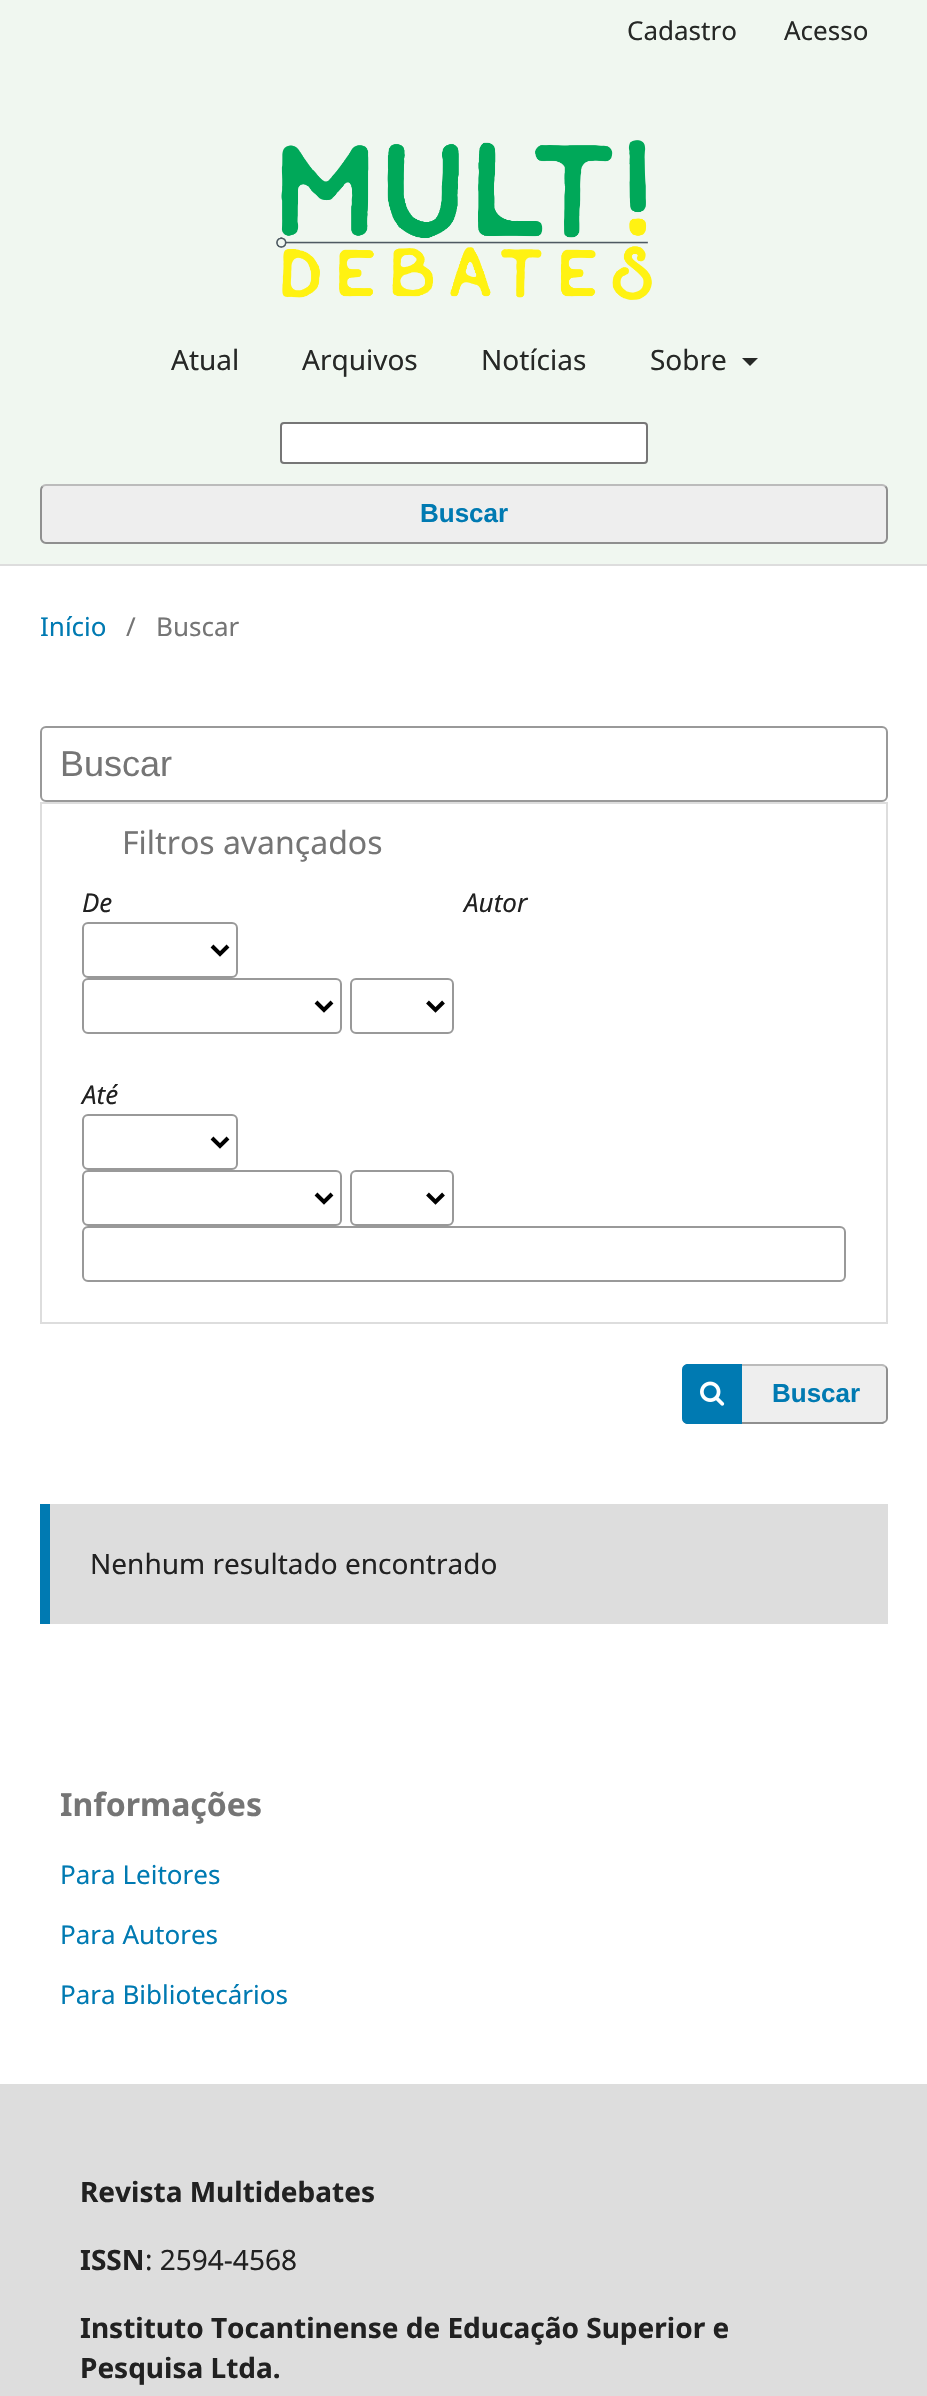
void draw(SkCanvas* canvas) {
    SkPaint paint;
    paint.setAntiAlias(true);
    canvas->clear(0xFFFFFFFF);
    paint.setColor(0xFFF0F7F0);
    canvas->drawRect(SkRect::MakeXYWH(0, 0, 927, 564), paint);
    paint.setColor(0xFFDDDDDD);
    canvas->drawRect(SkRect::MakeXYWH(0, 564, 927, 2), paint);
    SkFont font1(fontMgr->matchFamilyStyle("Noto Sans", SkFontStyle::Normal()), 26);
    font1.setSubpixel(true);
    paint.setColor(0xFF262826);
    canvas->drawString("Cadastro", 627, 40, font1, paint);
    canvas->drawString("Acesso", 784, 40, font1, paint);
    canvas->drawImageRect(SkImages::DeferredFromEncodedData(SkData::MakeFromFileName("img1.png")), SkRect::MakeXYWH(276, 140, 376, 160), SkSamplingOptions());
    SkFont font2(fontMgr->matchFamilyStyle("Noto Sans", SkFontStyle::Normal()), 28);
    font2.setSubpixel(true);
    canvas->drawString("Atual", 171, 370, font2, paint);
    canvas->drawString("Arquivos", 302, 370, font2, paint);
    canvas->drawString("Notícias", 481, 370, font2, paint);
    canvas->drawString("Sobre", 650, 370, font2, paint);
    canvas->drawPath(SkPathBuilder().moveTo(742, 358).lineTo(758, 358).lineTo(750, 366).close().detach(), paint);
    paint.setColor(0xFFFFFFFF);
    canvas->drawRoundRect(SkRect::MakeXYWH(281, 423, 366, 40), 3, 3, paint);
    paint.setStyle(SkPaint::kStroke_Style);
    paint.setStrokeWidth(2);
    paint.setColor(0xFF767676);
    canvas->drawRoundRect(SkRect::MakeXYWH(281, 423, 366, 40), 3, 3, paint);
    paint.setStyle(SkPaint::kFill_Style);
    paint.setColor(0xFFEEEEEE);
    canvas->drawRoundRect(SkRect::MakeXYWH(40, 484, 848, 60), 6, 6, paint);
    paint.setStyle(SkPaint::kStroke_Style);
    paint.setColor(0xFFBBBBBB);
    canvas->drawPath(SkPathBuilder().moveTo(42.5f, 486.5f).cubicTo(43.5f, 485.5f, 44.5f, 485, 46, 485).lineTo(882, 485).cubicTo(883.5f, 485, 884.5f, 485.5f, 885.5f, 486.5f).detach(), paint);
    paint.setColor(0x66000000);
    canvas->drawPath(SkPathBuilder().moveTo(885.5f, 486.5f).cubicTo(886.5f, 487.5f, 887, 488.5f, 887, 490).lineTo(887, 538).cubicTo(887, 539.5f, 886.5f, 540.5f, 885.5f, 541.5f).cubicTo(884.5f, 542.5f, 883.5f, 543, 882, 543).lineTo(46, 543).cubicTo(44.5f, 543, 43.5f, 542.5f, 42.5f, 541.5f).cubicTo(41.5f, 540.5f, 41, 539.5f, 41, 538).lineTo(41, 490).cubicTo(41, 488.5f, 41.5f, 487.5f, 42.5f, 486.5f).detach(), paint);
    SkFont font3(fontMgr->matchFamilyStyle("Liberation Sans", SkFontStyle::Bold()), 26);
    font3.setSubpixel(true);
    paint.setStyle(SkPaint::kFill_Style);
    paint.setColor(0xFF007AB2);
    canvas->drawString("Buscar", 420, 522, font3, paint);
    canvas->drawString("Início", 40, 636, font1, paint);
    paint.setColor(0xFF757575);
    canvas->drawString("/", 126, 636, font1, paint);
    canvas->drawString("Buscar", 156, 636, font1, paint);
    paint.setStyle(SkPaint::kStroke_Style);
    paint.setColor(0xFF999999);
    canvas->drawRoundRect(SkRect::MakeXYWH(41, 727, 846, 74), 5, 5, paint);
    SkFont font4(fontMgr->matchFamilyStyle("Liberation Sans", SkFontStyle::Normal()), 36);
    font4.setSubpixel(true);
    paint.setStyle(SkPaint::kFill_Style);
    paint.setColor(0xFF757575);
    canvas->drawString("Buscar", 60, 776, font4, paint);
    paint.setStyle(SkPaint::kStroke_Style);
    paint.setColor(0xFFDDDDDD);
    canvas->drawRect(SkRect::MakeXYWH(41, 803, 846, 520), paint);
    SkFont font5(fontMgr->matchFamilyStyle("Noto Sans", SkFontStyle::Normal()), 32);
    font5.setSubpixel(true);
    paint.setStyle(SkPaint::kFill_Style);
    paint.setColor(0xFF757575);
    canvas->drawString("Filtros avançados", 122, 854, font5, paint);
    SkFont font6(fontMgr->matchFamilyStyle("Noto Sans", SkFontStyle::Italic()), 26);
    font6.setSubpixel(true);
    paint.setColor(0xFF212121);
    canvas->drawString("De", 82, 912, font6, paint);
    paint.setStyle(SkPaint::kStroke_Style);
    paint.setColor(0xFF999999);
    canvas->drawRoundRect(SkRect::MakeXYWH(83, 923, 154, 54), 5, 5, paint);
    paint.setStrokeWidth(4);
    paint.setColor(0xFF000000);
    canvas->drawPath(SkPathBuilder().moveTo(212, 946).lineTo(220, 954).lineTo(228, 946).detach(), paint);
    paint.setStrokeWidth(2);
    paint.setColor(0xFF999999);
    canvas->drawRoundRect(SkRect::MakeXYWH(83, 979, 258, 54), 5, 5, paint);
    paint.setStrokeWidth(4);
    paint.setColor(0xFF000000);
    canvas->drawPath(SkPathBuilder().moveTo(316, 1002).lineTo(324, 1010).lineTo(332, 1002).detach(), paint);
    paint.setStrokeWidth(2);
    paint.setColor(0xFF999999);
    canvas->drawRoundRect(SkRect::MakeXYWH(351, 979, 102, 54), 5, 5, paint);
    paint.setStrokeWidth(4);
    paint.setColor(0xFF000000);
    canvas->drawPath(SkPathBuilder().moveTo(427.5f, 1002).lineTo(435.5f, 1010).lineTo(443.5f, 1002).detach(), paint);
    paint.setStyle(SkPaint::kFill_Style);
    paint.setColor(0xFF212121);
    canvas->drawString("Até", 82, 1104, font6, paint);
    paint.setStyle(SkPaint::kStroke_Style);
    paint.setStrokeWidth(2);
    paint.setColor(0xFF999999);
    canvas->drawRoundRect(SkRect::MakeXYWH(83, 1115, 154, 54), 5, 5, paint);
    paint.setStrokeWidth(4);
    paint.setColor(0xFF000000);
    canvas->drawPath(SkPathBuilder().moveTo(212, 1138).lineTo(220, 1146).lineTo(228, 1138).detach(), paint);
    paint.setStrokeWidth(2);
    paint.setColor(0xFF999999);
    canvas->drawRoundRect(SkRect::MakeXYWH(83, 1171, 258, 54), 5, 5, paint);
    paint.setStrokeWidth(4);
    paint.setColor(0xFF000000);
    canvas->drawPath(SkPathBuilder().moveTo(316, 1194).lineTo(324, 1202).lineTo(332, 1194).detach(), paint);
    paint.setStrokeWidth(2);
    paint.setColor(0xFF999999);
    canvas->drawRoundRect(SkRect::MakeXYWH(351, 1171, 102, 54), 5, 5, paint);
    paint.setStrokeWidth(4);
    paint.setColor(0xFF000000);
    canvas->drawPath(SkPathBuilder().moveTo(427.5f, 1194).lineTo(435.5f, 1202).lineTo(443.5f, 1194).detach(), paint);
    paint.setStyle(SkPaint::kFill_Style);
    paint.setColor(0xFF212121);
    canvas->drawString("Autor", 464, 912, font6, paint);
    paint.setStyle(SkPaint::kStroke_Style);
    paint.setStrokeWidth(2);
    paint.setColor(0xFF999999);
    canvas->drawRoundRect(SkRect::MakeXYWH(83, 1227, 762, 54), 5, 5, paint);
    paint.setStyle(SkPaint::kFill_Style);
    paint.setColor(0xFFEEEEEE);
    canvas->drawRoundRect(SkRect::MakeXYWH(682, 1364, 206, 60), 6, 6, paint);
    paint.setColor(0xFFBBBBBB);
    canvas->drawPath(SkPathBuilder().moveTo(688, 1364).cubicTo(685, 1364, 682, 1367, 682, 1370).cubicTo(682, 1363, 706, 1366, 720, 1366).lineTo(882, 1366).lineTo(885, 1367).lineTo(886, 1366).cubicTo(885, 1365, 884, 1364, 882, 1364).close().detach(), paint);
    paint.setColor(0x66000000);
    canvas->drawPath(SkPathBuilder().moveTo(885, 1421).cubicTo(886, 1420, 886, 1419, 886, 1418).lineTo(886, 1370).cubicTo(886, 1369, 886, 1368, 885, 1367).lineTo(886, 1366).cubicTo(887, 1367, 888, 1368, 888, 1370).lineTo(888, 1418).cubicTo(888, 1420, 887, 1421, 886, 1422).close().detach(), paint);
    canvas->drawPath(SkPathBuilder().moveTo(688, 1424).lineTo(883, 1424).lineTo(886, 1422).lineTo(885, 1421).lineTo(882, 1422).lineTo(720, 1422).cubicTo(706, 1422, 682, 1425, 682, 1418).cubicTo(682, 1421, 685, 1424, 688, 1424).close().detach(), paint);
    paint.setColor(0xFF007AB2);
    canvas->drawPath(SkPathBuilder().moveTo(688, 1364).lineTo(742, 1364).lineTo(742, 1424).lineTo(688, 1424).cubicTo(684.5f, 1424, 682, 1421.5f, 682, 1418).lineTo(682, 1370).cubicTo(682, 1366.5f, 684.5f, 1364, 688, 1364).close().detach(), paint);
    canvas->drawImageRect(SkImages::DeferredFromEncodedData(SkData::MakeFromFileName("img2.png")), SkRect::MakeXYWH(700, 1381, 25, 25), SkSamplingOptions());
    canvas->drawString("Buscar", 772, 1402, font3, paint);
    paint.setColor(0xFFDDDDDD);
    canvas->drawRect(SkRect::MakeXYWH(50, 1504, 838, 120), paint);
    paint.setColor(0xFF007AB2);
    canvas->drawRect(SkRect::MakeXYWH(40, 1504, 10, 120), paint);
    paint.setColor(0xFF212121);
    canvas->drawString("Nenhum resultado encontrado", 90, 1574, font2, paint);
    SkFont font7(fontMgr->matchFamilyStyle("Noto Sans", SkFontStyle::Bold()), 32);
    font7.setSubpixel(true);
    paint.setColor(0xFF757575);
    canvas->drawString("Informações", 60, 1816, font7, paint);
    paint.setColor(0xFF007AB2);
    canvas->drawString("Para Leitores", 60, 1884, font1, paint);
    canvas->drawString("Para Autores", 60, 1944, font1, paint);
    canvas->drawString("Para Bibliotecários", 60, 2004, font1, paint);
    paint.setColor(0xFFDDDDDD);
    canvas->drawRect(SkRect::MakeXYWH(0, 2084, 927, 312), paint);
    SkFont font8(fontMgr->matchFamilyStyle("Noto Sans", SkFontStyle::Bold()), 28);
    font8.setSubpixel(true);
    paint.setColor(0xFF212121);
    canvas->drawString("Revista Multidebates", 80, 2202, font8, paint);
    canvas->drawString("ISSN", 80, 2270, font8, paint);
    canvas->drawString(": 2594-4568", 145, 2270, font2, paint);
    canvas->drawString("Instituto Tocantinense de Educação Superior e", 80, 2338, font8, paint);
    canvas->drawString("Pesquisa Ltda.", 80, 2378, font8, paint);
}
